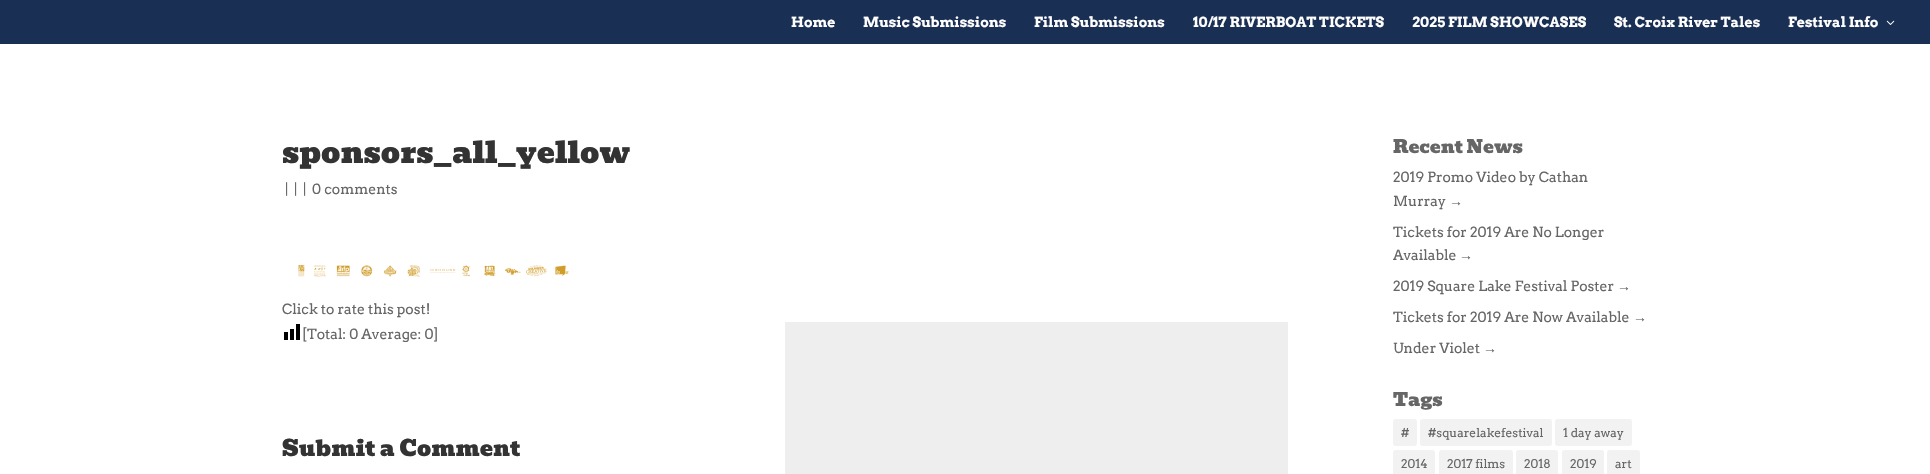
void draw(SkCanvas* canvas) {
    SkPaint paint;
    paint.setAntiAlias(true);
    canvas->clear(0xFFFFFFFF);
    paint.setColor(0xFF1A2F54);
    canvas->drawRect(SkRect::MakeXYWH(0, 0, 1930, 44), paint);
    SkFont font1(fontMgr->matchFamilyStyle("Arvo", SkFontStyle::Bold()), 14);
    font1.setSubpixel(true);
    paint.setColor(0xFFFFFFFF);
    canvas->drawString("Home", 791, 27, font1, paint);
    canvas->drawString("Music Submissions", 863, 27, font1, paint);
    canvas->drawString("Film Submissions", 1034, 27, font1, paint);
    canvas->drawString("10/17 RIVERBOAT TICKETS", 1193, 27, font1, paint);
    canvas->drawString("2025 FILM SHOWCASES", 1412, 27, font1, paint);
    canvas->drawString("St. Croix River Tales", 1614, 27, font1, paint);
    canvas->drawString("Festival Info", 1788, 27, font1, paint);
    canvas->drawImageRect(SkImages::DeferredFromEncodedData(SkData::MakeFromFileName("img1.png")), SkRect::MakeXYWH(1886, 20, 9, 5), SkSamplingOptions());
    SkFont font2(fontMgr->matchFamilyStyle("Bevan", SkFontStyle::Normal()), 30);
    font2.setSubpixel(true);
    paint.setColor(0xFF333333);
    canvas->drawString("sponsors_all_yellow", 282, 163, font2, paint);
    SkFont font3(fontMgr->matchFamilyStyle("Arvo", SkFontStyle::Normal()), 14);
    font3.setSubpixel(true);
    paint.setColor(0xFF666666);
    canvas->drawString("|", 285, 194, font3, paint);
    canvas->drawString("|", 294, 194, font3, paint);
    canvas->drawString("|", 303, 194, font3, paint);
    canvas->drawString("0 comments", 312, 194, font3, paint);
    canvas->drawImageRect(SkImages::DeferredFromEncodedData(SkData::MakeFromFileName("img2.png")), SkRect::MakeXYWH(298, 264, 271, 13), SkSamplingOptions());
    canvas->drawString("Click to rate this post!", 282, 314, font3, paint);
    canvas->drawImageRect(SkImages::DeferredFromEncodedData(SkData::MakeFromFileName("img3.png")), SkRect::MakeXYWH(284, 324, 16, 16), SkSamplingOptions());
    canvas->drawString("[Total: 0 Average: 0]", 302, 339, font3, paint);
    SkFont font4(fontMgr->matchFamilyStyle("Bevan", SkFontStyle::Normal()), 22);
    font4.setSubpixel(true);
    paint.setColor(0xFF333333);
    canvas->drawString("Submit a Comment", 282, 456, font4, paint);
    paint.setColor(0xFFEEEEEE);
    canvas->drawRect(SkRect::MakeXYWH(785, 322, 503, 152), paint);
    SkFont font5(fontMgr->matchFamilyStyle("Bevan", SkFontStyle::Normal()), 18);
    font5.setSubpixel(true);
    paint.setColor(0xFF666666);
    canvas->drawString("Recent News", 1393, 153, font5, paint);
    canvas->drawString("2019 Promo Video by Cathan", 1393, 182, font3, paint);
    canvas->drawString("Murray", 1393, 206, font3, paint);
    SkFont font6(fontMgr->matchFamilyStyle("Liberation Serif", SkFontStyle::Normal()), 14);
    font6.setSubpixel(true);
    canvas->drawString("→", 1449, 206, font6, paint);
    canvas->drawString("Tickets for 2019 Are No Longer", 1393, 237, font3, paint);
    canvas->drawString("Available", 1393, 260, font3, paint);
    canvas->drawString("→", 1459, 260, font6, paint);
    canvas->drawString("2019 Square Lake Festival Poster", 1393, 291, font3, paint);
    canvas->drawString("→", 1617, 291, font6, paint);
    canvas->drawString("Tickets for 2019 Are Now Available", 1393, 322, font3, paint);
    canvas->drawString("→", 1633, 322, font6, paint);
    canvas->drawString("Under Violet", 1393, 353, font3, paint);
    canvas->drawString("→", 1483, 353, font6, paint);
    canvas->drawString("Tags", 1393, 406, font5, paint);
    paint.setColor(0xFFF2F2F2);
    canvas->drawRoundRect(SkRect::MakeXYWH(1393, 419, 24, 27), 3, 3, paint);
    SkFont font7(fontMgr->matchFamilyStyle("Arvo", SkFontStyle::Normal()), 12);
    font7.setSubpixel(true);
    paint.setColor(0xFF666666);
    canvas->drawString("#", 1401, 437, font7, paint);
    paint.setColor(0xFFF2F2F2);
    canvas->drawRoundRect(SkRect::MakeXYWH(1420, 419, 132, 27), 3, 3, paint);
    paint.setColor(0xFF666666);
    canvas->drawString("#squarelakefestival", 1428, 437, font7, paint);
    paint.setColor(0xFFF2F2F2);
    canvas->drawRoundRect(SkRect::MakeXYWH(1555, 419, 77, 27), 3, 3, paint);
    paint.setColor(0xFF666666);
    canvas->drawString("1 day away", 1563, 437, font7, paint);
    paint.setColor(0xFFF2F2F2);
    canvas->drawRoundRect(SkRect::MakeXYWH(1393, 450, 42, 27), 3, 3, paint);
    paint.setColor(0xFF666666);
    canvas->drawString("2014", 1401, 468, font7, paint);
    paint.setColor(0xFFF2F2F2);
    canvas->drawRoundRect(SkRect::MakeXYWH(1439, 450, 74, 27), 3, 3, paint);
    paint.setColor(0xFF666666);
    canvas->drawString("2017 films", 1447, 468, font7, paint);
    paint.setColor(0xFFF2F2F2);
    canvas->drawRoundRect(SkRect::MakeXYWH(1516, 450, 42, 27), 3, 3, paint);
    paint.setColor(0xFF666666);
    canvas->drawString("2018", 1524, 468, font7, paint);
    paint.setColor(0xFFF2F2F2);
    canvas->drawRoundRect(SkRect::MakeXYWH(1562, 450, 42, 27), 3, 3, paint);
    paint.setColor(0xFF666666);
    canvas->drawString("2019", 1570, 468, font7, paint);
    paint.setColor(0xFFF2F2F2);
    canvas->drawRoundRect(SkRect::MakeXYWH(1607, 450, 33, 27), 3, 3, paint);
    paint.setColor(0xFF666666);
    canvas->drawString("art", 1615, 468, font7, paint);
}
